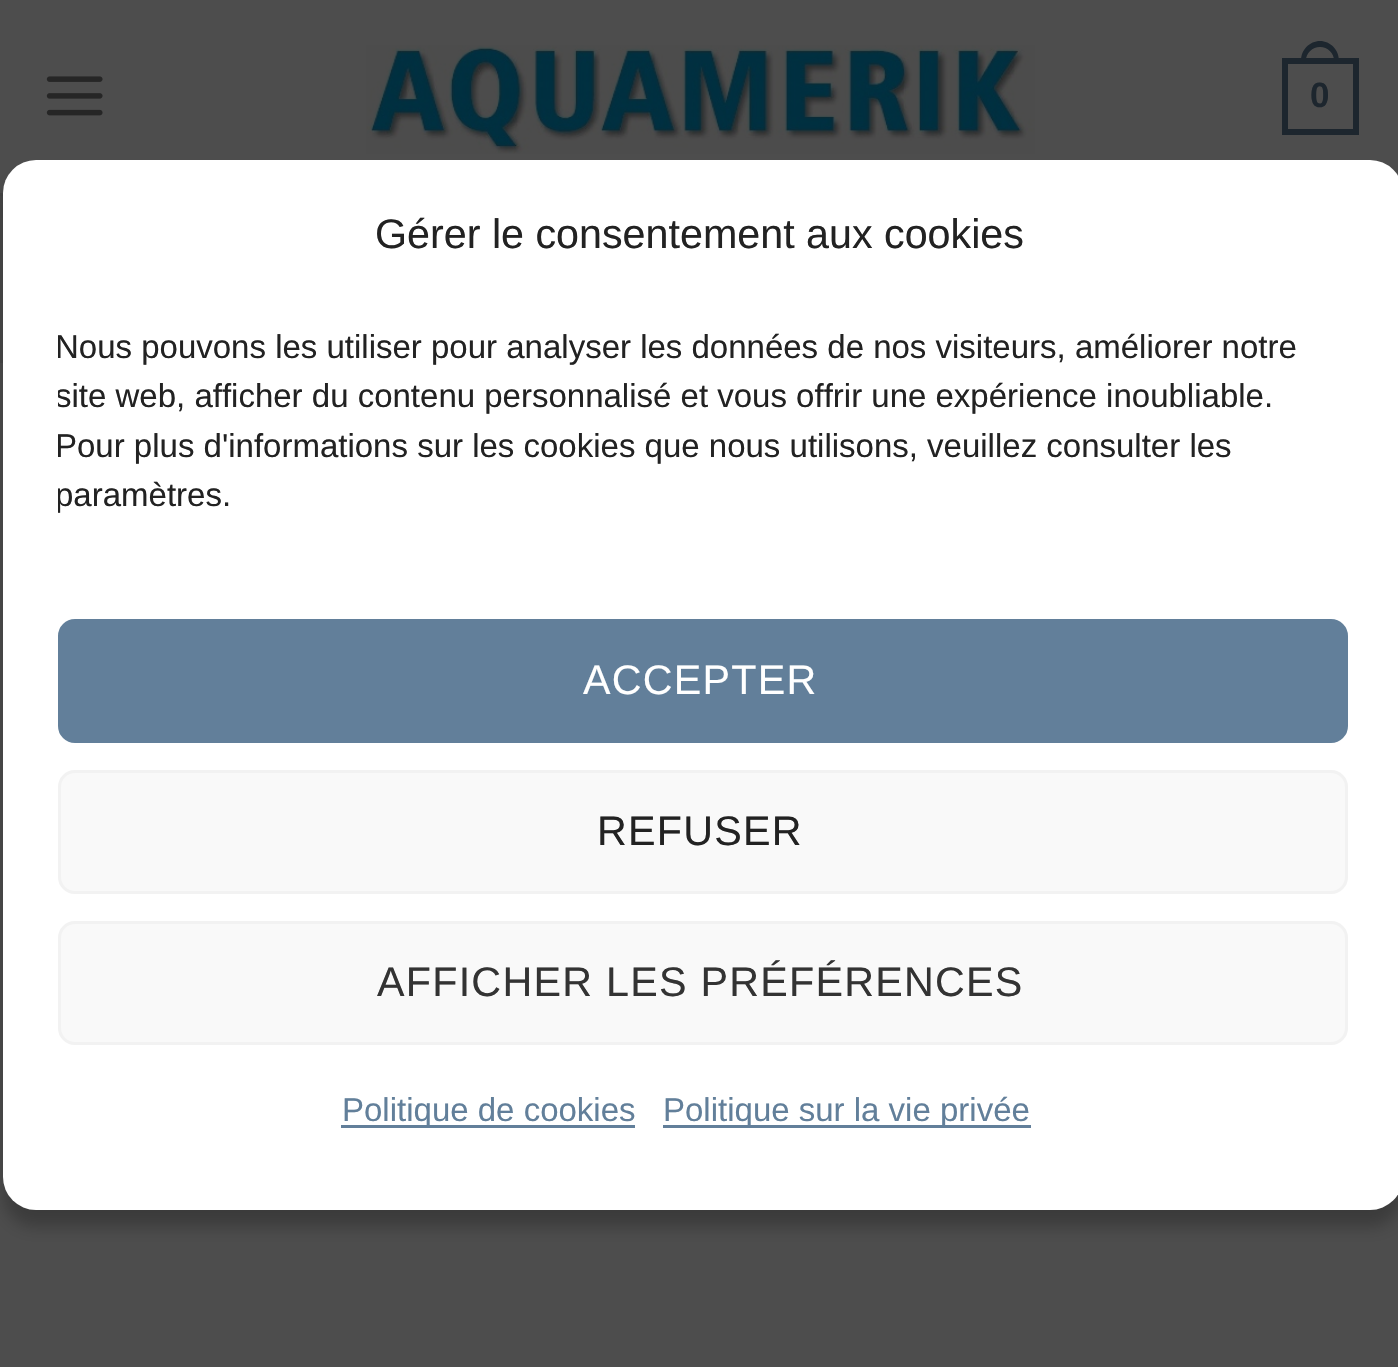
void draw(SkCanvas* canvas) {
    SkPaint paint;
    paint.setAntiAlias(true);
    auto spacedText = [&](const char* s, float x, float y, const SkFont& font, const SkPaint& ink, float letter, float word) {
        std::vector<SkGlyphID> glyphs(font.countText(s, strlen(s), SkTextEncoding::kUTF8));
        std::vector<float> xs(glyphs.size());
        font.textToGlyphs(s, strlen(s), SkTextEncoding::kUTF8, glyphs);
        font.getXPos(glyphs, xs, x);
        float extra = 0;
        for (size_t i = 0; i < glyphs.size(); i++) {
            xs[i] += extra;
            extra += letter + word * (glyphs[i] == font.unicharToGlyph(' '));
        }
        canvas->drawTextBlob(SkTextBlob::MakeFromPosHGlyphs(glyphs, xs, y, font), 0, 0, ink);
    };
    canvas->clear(0xFF4D4D4D);
    paint.setColor(0xFF4A4A4A);
    canvas->drawRect(SkRect::MakeXYWH(0, 196, 3, 164), paint);
    paint.setColor(0xFF474747);
    canvas->drawRect(SkRect::MakeXYWH(0, 193, 3, 3), paint);
    paint.setColor(0x26000000);
    paint.setMaskFilter(SkMaskFilter::MakeBlur(kNormal_SkBlurStyle, 14));
    canvas->drawRect(SkRect::MakeXYWH(3, 3, 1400, 192), paint);
    paint.setMaskFilter(nullptr);
    paint.setColor(0xFF4D4D4D);
    canvas->drawRect(SkRect::MakeXYWH(0, 0, 1398, 193), paint);
    canvas->drawImageRect(SkImages::DeferredFromEncodedData(SkData::MakeFromFileName("img1.png")), SkRect::MakeXYWH(46, 76, 57, 40), SkSamplingOptions());
    canvas->drawImageRect(SkImages::DeferredFromEncodedData(SkData::MakeFromFileName("img2.png")), SkRect::MakeXYWH(366, 45, 669, 109), SkSamplingOptions());
    paint.setStyle(SkPaint::kStroke_Style);
    paint.setStrokeWidth(6);
    paint.setColor(0xFF1D262E);
    canvas->drawRect(SkRect::MakeXYWH(1285, 61, 71, 71), paint);
    paint.setStyle(SkPaint::kFill_Style);
    canvas->drawPath(SkPathBuilder(SkPathFillType::kEvenOdd).moveTo(1320, 41).cubicTo(1330.5f, 41, 1339, 50, 1339, 60.5f).lineTo(1339, 63).lineTo(1301, 63).lineTo(1301, 60.5f).cubicTo(1301, 50, 1309.5f, 41, 1320, 41).close().moveTo(1320, 47).cubicTo(1327.5f, 47, 1334, 53, 1334, 60.5f).lineTo(1334, 63).lineTo(1306, 63).lineTo(1306, 60.5f).cubicTo(1306, 53, 1312.5f, 47, 1320, 47).close().detach(), paint);
    SkFont font1(fontMgr->matchFamilyStyle("Liberation Sans", SkFontStyle::Bold()), 35);
    font1.setSubpixel(true);
    canvas->drawString("0", 1310, 107, font1, paint);
    paint.setColor(0xFF474747);
    canvas->drawRect(SkRect::MakeXYWH(0, 360, 3, 3), paint);
    canvas->save();
    canvas->clipPath(SkPathBuilder(SkPathFillType::kEvenOdd).moveTo(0, 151).lineTo(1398, 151).lineTo(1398, 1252).lineTo(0, 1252).close().moveTo(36, 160).lineTo(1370, 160).cubicTo(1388, 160, 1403, 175, 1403, 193).lineTo(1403, 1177).cubicTo(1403, 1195, 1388, 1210, 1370, 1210).lineTo(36, 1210).cubicTo(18, 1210, 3, 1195, 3, 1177).lineTo(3, 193).cubicTo(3, 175, 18, 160, 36, 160).close().detach(), true);
    paint.setColor(0x3B000000);
    paint.setMaskFilter(SkMaskFilter::MakeBlur(kNormal_SkBlurStyle, 8));
    canvas->drawRoundRect(SkRect::MakeXYWH(3, 176, 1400, 1051), 33, 33, paint);
    paint.setMaskFilter(nullptr);
    canvas->restore();
    paint.setColor(0xFFFFFFFF);
    canvas->drawRoundRect(SkRect::MakeXYWH(3, 160, 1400, 1050), 33, 33, paint);
    SkFont font2(fontMgr->matchFamilyStyle("Liberation Sans", SkFontStyle::Normal()), 41.25f);
    font2.setSubpixel(true);
    paint.setColor(0xFF222222);
    canvas->drawString("Gérer le consentement aux cookies", 375, 248, font2, paint);
    canvas->save();
    canvas->clipRect(SkRect::MakeXYWH(58, 322, 1290, 242));
    SkFont font3(fontMgr->matchFamilyStyle("Liberation Sans", SkFontStyle::Normal()), 33);
    font3.setSubpixel(true);
    canvas->drawString("Nous pouvons les utiliser pour analyser les données de nos visiteurs, améliorer notre", 55, 358, font3, paint);
    canvas->drawString("site web, afficher du contenu personnalisé et vous offrir une expérience inoubliable.", 55, 407, font3, paint);
    canvas->drawString("Pour plus d'informations sur les cookies que nous utilisons, veuillez consulter les", 55, 457, font3, paint);
    canvas->drawString("paramètres.", 55, 506, font3, paint);
    canvas->restore();
    paint.setColor(0xFF627F9A);
    canvas->drawRoundRect(SkRect::MakeXYWH(59.5f, 620.5f, 1287, 121), 15.5f, 15.5f, paint);
    paint.setStyle(SkPaint::kStroke_Style);
    paint.setStrokeWidth(3);
    canvas->drawRoundRect(SkRect::MakeXYWH(59.5f, 620.5f, 1287, 121), 15.5f, 15.5f, paint);
    paint.setStyle(SkPaint::kFill_Style);
    paint.setColor(0xFFFFFFFF);
    spacedText("ACCEPTER", 583, 694, font2, paint, 1.25f, 0);
    paint.setColor(0xFFF9F9F9);
    canvas->drawRoundRect(SkRect::MakeXYWH(59.5f, 771.5f, 1287, 121), 15.5f, 15.5f, paint);
    paint.setStyle(SkPaint::kStroke_Style);
    paint.setColor(0xFFF2F2F2);
    canvas->drawRoundRect(SkRect::MakeXYWH(59.5f, 771.5f, 1287, 121), 15.5f, 15.5f, paint);
    paint.setStyle(SkPaint::kFill_Style);
    paint.setColor(0xFF222222);
    spacedText("REFUSER", 597, 845, font2, paint, 1.25f, 0);
    paint.setColor(0xFFF9F9F9);
    canvas->drawRoundRect(SkRect::MakeXYWH(59.5f, 922.5f, 1287, 121), 15.5f, 15.5f, paint);
    paint.setStyle(SkPaint::kStroke_Style);
    paint.setColor(0xFFF2F2F2);
    canvas->drawRoundRect(SkRect::MakeXYWH(59.5f, 922.5f, 1287, 121), 15.5f, 15.5f, paint);
    paint.setStyle(SkPaint::kFill_Style);
    paint.setColor(0xFF333333);
    spacedText("AFFICHER LES PRÉFÉRENCES", 377, 996, font2, paint, 1.25f, 0);
    paint.setColor(0xFF627F9A);
    canvas->drawRect(SkRect::MakeXYWH(341, 1125, 294, 3), paint);
    canvas->drawString("Politique de cookies", 342, 1121, font3, paint);
    canvas->drawRect(SkRect::MakeXYWH(663, 1125, 368, 3), paint);
    canvas->drawString("Politique sur la vie privée", 663, 1121, font3, paint);
}
